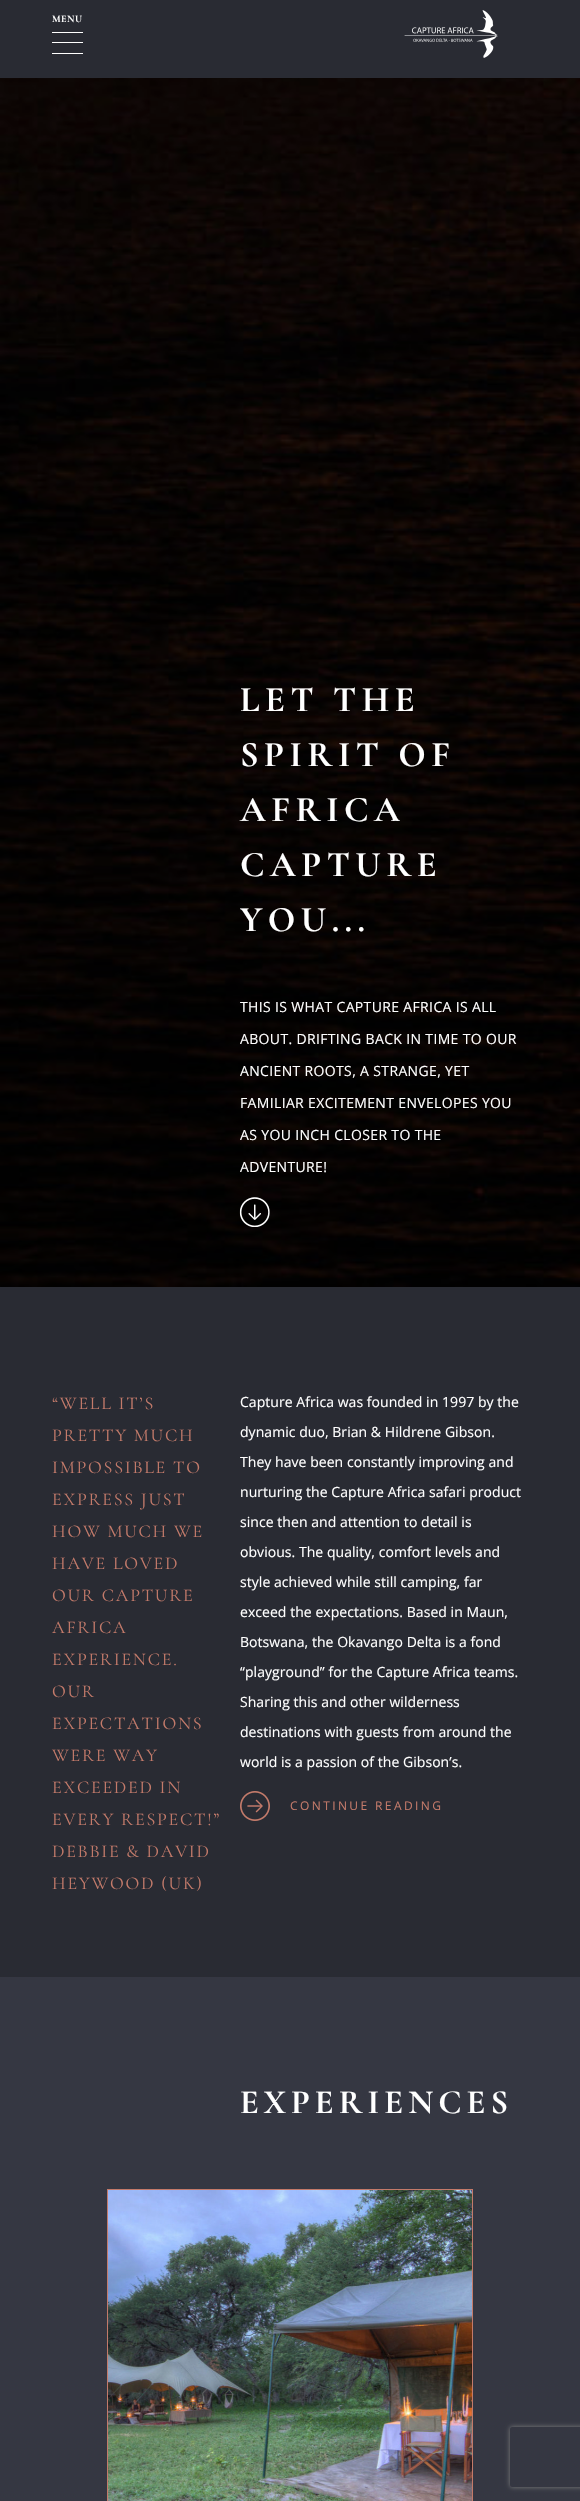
void draw(SkCanvas* canvas) {
    SkPaint paint;
    paint.setAntiAlias(true);
    auto spacedText = [&](const char* s, float x, float y, const SkFont& font, const SkPaint& ink, float letter, float word) {
        std::vector<SkGlyphID> glyphs(font.countText(s, strlen(s), SkTextEncoding::kUTF8));
        std::vector<float> xs(glyphs.size());
        font.textToGlyphs(s, strlen(s), SkTextEncoding::kUTF8, glyphs);
        font.getXPos(glyphs, xs, x);
        float extra = 0;
        for (size_t i = 0; i < glyphs.size(); i++) {
            xs[i] += extra;
            extra += letter + word * (glyphs[i] == font.unicharToGlyph(' '));
        }
        canvas->drawTextBlob(SkTextBlob::MakeFromPosHGlyphs(glyphs, xs, y, font), 0, 0, ink);
    };
    canvas->clear(0xFF292B33);
    SkFont font1(fontMgr->matchFamilyStyle("Cormorant Garamond", SkFontStyle::Bold()), 10);
    font1.setSubpixel(true);
    paint.setColor(0xFFFFFFFF);
    spacedText("MENU", 52, 22, font1, paint, 0.5f, 0);
    canvas->drawImageRect(SkImages::DeferredFromEncodedData(SkData::MakeFromFileName("img1.png")), SkRect::MakeXYWH(52, 32, 31, 22), SkSamplingOptions());
    canvas->drawImageRect(SkImages::DeferredFromEncodedData(SkData::MakeFromFileName("img2.png")), SkRect::MakeXYWH(404, 10, 94, 48), SkSamplingOptions());
    canvas->drawImageRect(SkImages::DeferredFromEncodedData(SkData::MakeFromFileName("img3.png")), SkRect::MakeXYWH(0, 78, 580, 1209), SkSamplingOptions());
    SkFont font2(fontMgr->matchFamilyStyle("Cormorant Garamond", SkFontStyle::Bold()), 36);
    font2.setSubpixel(true);
    spacedText("LET THE", 240, 711, font2, paint, 5.5f, 0);
    spacedText("SPIRIT OF", 240, 766, font2, paint, 5.5f, 0);
    spacedText("AFRICA", 240, 821, font2, paint, 5.5f, 0);
    spacedText("CAPTURE", 240, 876, font2, paint, 5.5f, 0);
    spacedText("YOU...", 240, 931, font2, paint, 5.5f, 0);
    SkFont font3(fontMgr->matchFamilyStyle("Open Sans", SkFontStyle::Normal()), 14);
    font3.setSubpixel(true);
    spacedText("THIS IS WHAT CAPTURE AFRICA IS ALL", 240, 1012, font3, paint, 0.35f, 0);
    spacedText("ABOUT. DRIFTING BACK IN TIME TO OUR", 240, 1044, font3, paint, 0.35f, 0);
    spacedText("ANCIENT ROOTS, A STRANGE, YET", 240, 1076, font3, paint, 0.35f, 0);
    spacedText("FAMILIAR EXCITEMENT ENVELOPES YOU", 240, 1108, font3, paint, 0.35f, 0);
    spacedText("AS YOU INCH CLOSER TO THE", 240, 1140, font3, paint, 0.35f, 0);
    spacedText("ADVENTURE!", 240, 1172, font3, paint, 0.35f, 0);
    canvas->drawImageRect(SkImages::DeferredFromEncodedData(SkData::MakeFromFileName("img4.png")), SkRect::MakeXYWH(239, 1197, 31, 30), SkSamplingOptions());
    SkFont font4(fontMgr->matchFamilyStyle("Cormorant Garamond", SkFontStyle::Normal()), 18);
    font4.setSubpixel(true);
    paint.setColor(0xFFC37A6A);
    spacedText("“WELL IT’S", 52, 1409, font4, paint, 1.75f, 0);
    spacedText("PRETTY MUCH", 52, 1441, font4, paint, 1.75f, 0);
    spacedText("IMPOSSIBLE TO", 52, 1473, font4, paint, 1.75f, 0);
    spacedText("EXPRESS JUST", 52, 1505, font4, paint, 1.75f, 0);
    spacedText("HOW MUCH WE", 52, 1537, font4, paint, 1.75f, 0);
    spacedText("HAVE LOVED", 52, 1569, font4, paint, 1.75f, 0);
    spacedText("OUR CAPTURE", 52, 1601, font4, paint, 1.75f, 0);
    spacedText("AFRICA", 52, 1633, font4, paint, 1.75f, 0);
    spacedText("EXPERIENCE.", 52, 1665, font4, paint, 1.75f, 0);
    spacedText("OUR", 52, 1697, font4, paint, 1.75f, 0);
    spacedText("EXPECTATIONS", 52, 1729, font4, paint, 1.75f, 0);
    spacedText("WERE WAY", 52, 1761, font4, paint, 1.75f, 0);
    spacedText("EXCEEDED IN", 52, 1793, font4, paint, 1.75f, 0);
    spacedText("EVERY RESPECT!”", 52, 1825, font4, paint, 1.75f, 0);
    spacedText("DEBBIE & DAVID", 52, 1857, font4, paint, 1.75f, 0);
    spacedText("HEYWOOD (UK)", 52, 1889, font4, paint, 1.75f, 0);
    paint.setColor(0xFFFFFFFF);
    spacedText("Capture Africa was founded in 1997 by the", 240, 1407, font3, paint, 0.05f, 0);
    spacedText("dynamic duo, Brian & Hildrene Gibson.", 240, 1437, font3, paint, 0.05f, 0);
    spacedText("They have been constantly improving and", 240, 1467, font3, paint, 0.05f, 0);
    spacedText("nurturing the Capture Africa safari product", 240, 1497, font3, paint, 0.05f, 0);
    spacedText("since then and attention to detail is", 240, 1527, font3, paint, 0.05f, 0);
    spacedText("obvious. The quality, comfort levels and", 240, 1557, font3, paint, 0.05f, 0);
    spacedText("style achieved while still camping, far", 240, 1587, font3, paint, 0.05f, 0);
    spacedText("exceed the expectations. Based in Maun,", 240, 1617, font3, paint, 0.05f, 0);
    spacedText("Botswana, the Okavango Delta is a fond", 240, 1647, font3, paint, 0.05f, 0);
    spacedText("“playground” for the Capture Africa teams.", 240, 1677, font3, paint, 0.05f, 0);
    spacedText("Sharing this and other wilderness", 240, 1707, font3, paint, 0.05f, 0);
    spacedText("destinations with guests from around the", 240, 1737, font3, paint, 0.05f, 0);
    spacedText("world is a passion of the Gibson’s.", 240, 1767, font3, paint, 0.05f, 0);
    canvas->drawImageRect(SkImages::DeferredFromEncodedData(SkData::MakeFromFileName("img5.png")), SkRect::MakeXYWH(240, 1791, 30, 30), SkSamplingOptions());
    SkFont font5(fontMgr->matchFamilyStyle("Open Sans", SkFontStyle::Normal()), 12);
    font5.setSubpixel(true);
    paint.setColor(0xFFC37A6A);
    spacedText("CONTINUE READING", 290, 1810, font5, paint, 2.4f, 0);
    paint.setColor(0xFF353742);
    canvas->drawRect(SkRect::MakeXYWH(0, 1977, 580, 524), paint);
    SkFont font6(fontMgr->matchFamilyStyle("Cormorant Garamond", SkFontStyle::Bold()), 34);
    font6.setSubpixel(true);
    paint.setColor(0xFFFFFFFF);
    spacedText("EXPERIENCES", 240, 2113, font6, paint, 5.1f, 0);
    paint.setStyle(SkPaint::kStroke_Style);
    paint.setStrokeWidth(1);
    paint.setColor(0xFFC37A6A);
    canvas->drawRect(SkRect::MakeXYWH(107.5f, 2189.5f, 365, 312), paint);
    canvas->drawImageRect(SkImages::DeferredFromEncodedData(SkData::MakeFromFileName("img6.png")), SkRect::MakeXYWH(108, 2190, 364, 311), SkSamplingOptions());
    canvas->save();
    canvas->clipPath(SkPathBuilder(SkPathFillType::kEvenOdd).moveTo(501, 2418).lineTo(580, 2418).lineTo(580, 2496).lineTo(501, 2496).close().moveTo(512, 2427).lineTo(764, 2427).cubicTo(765, 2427, 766, 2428, 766, 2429).lineTo(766, 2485).cubicTo(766, 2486, 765, 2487, 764, 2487).lineTo(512, 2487).cubicTo(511, 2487, 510, 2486, 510, 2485).lineTo(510, 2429).cubicTo(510, 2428, 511, 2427, 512, 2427).close().detach(), true);
    paint.setStyle(SkPaint::kFill_Style);
    paint.setColor(0xFF808080);
    paint.setMaskFilter(SkMaskFilter::MakeBlur(kNormal_SkBlurStyle, 2.5f));
    canvas->drawRoundRect(SkRect::MakeXYWH(510, 2427, 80, 60), 2, 2, paint);
    paint.setMaskFilter(nullptr);
    canvas->restore();
}
